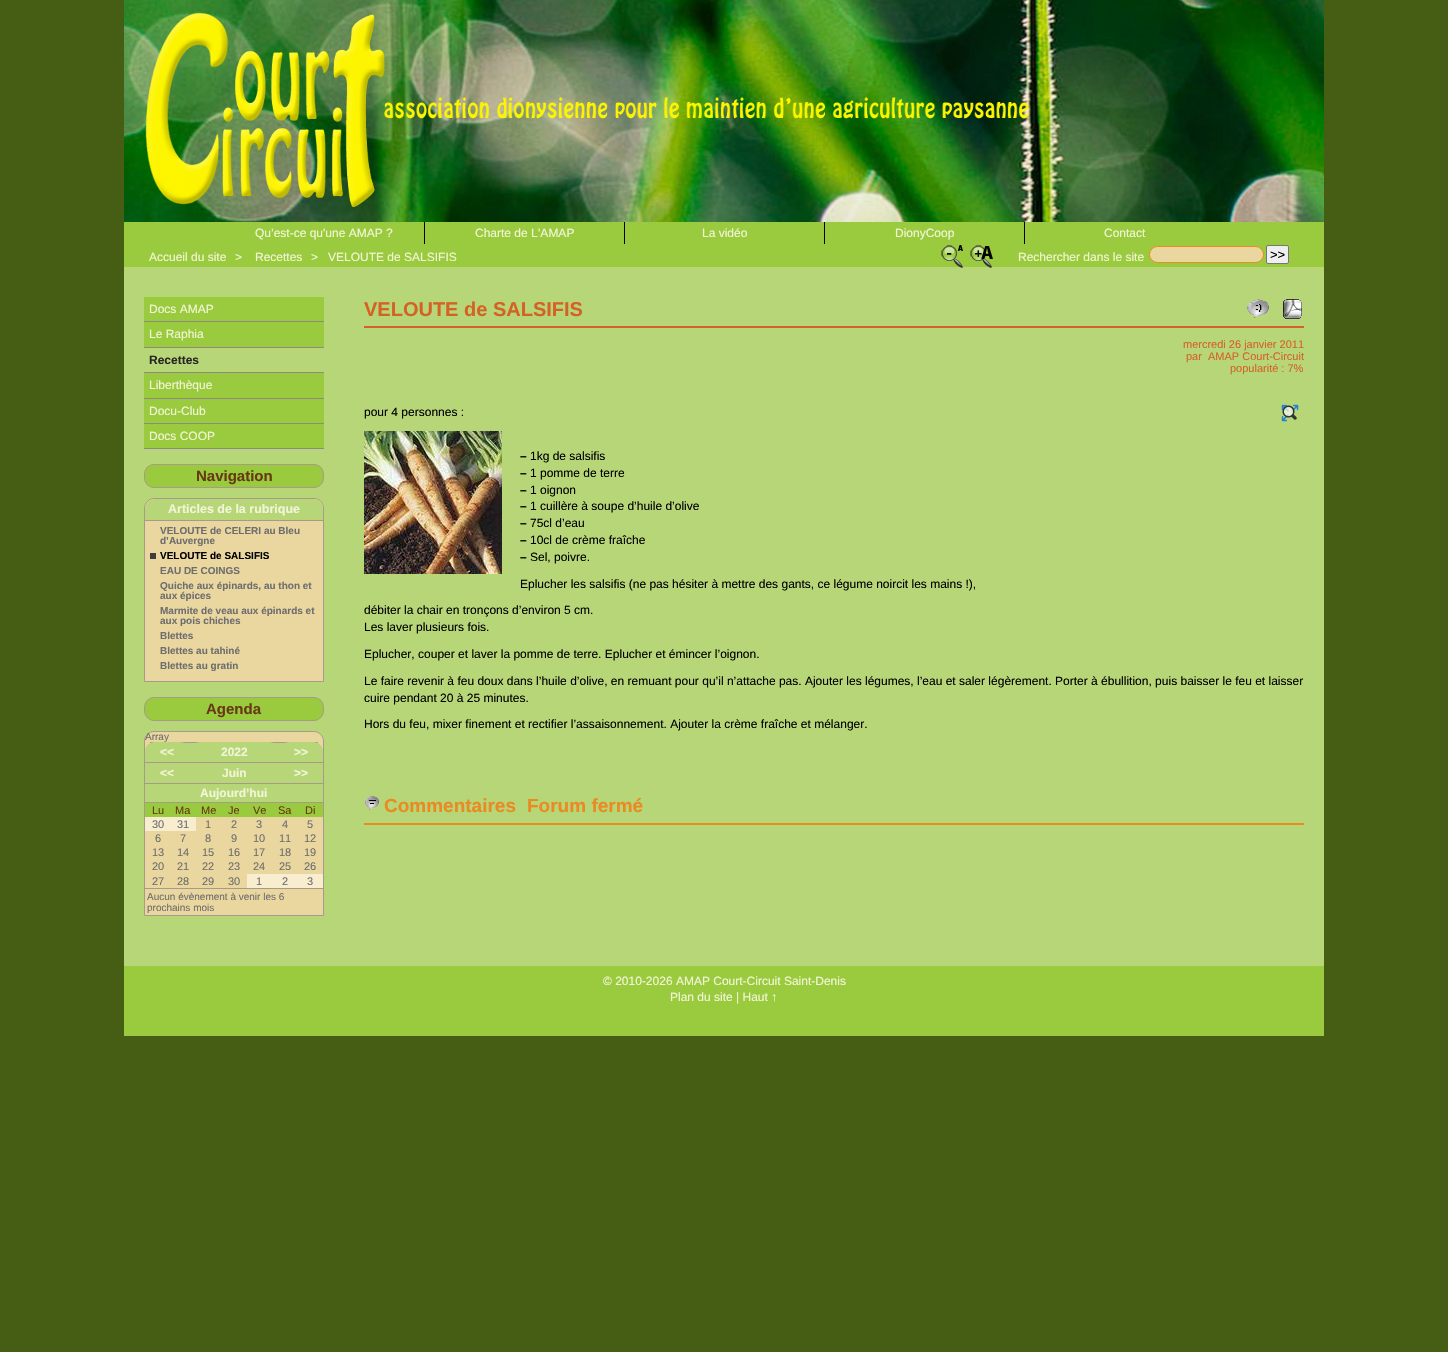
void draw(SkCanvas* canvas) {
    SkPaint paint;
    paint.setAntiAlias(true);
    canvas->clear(0xFF455E13);
    paint.setColor(0xFFB7D678);
    canvas->drawRect(SkRect::MakeXYWH(124, 267, 1200, 699), paint);
    canvas->drawImageRect(SkImages::DeferredFromEncodedData(SkData::MakeFromFileName("img1.png")), SkRect::MakeXYWH(124, 0, 1200, 222), SkSamplingOptions());
    canvas->drawImageRect(SkImages::DeferredFromEncodedData(SkData::MakeFromFileName("img2.png")), SkRect::MakeXYWH(145, 12, 884, 195), SkSamplingOptions());
    paint.setColor(0xFF9ACB3E);
    canvas->drawRect(SkRect::MakeXYWH(124, 222, 1200, 45), paint);
    SkFont font1(fontMgr->matchFamilyStyle("Liberation Sans", SkFontStyle::Normal()), 12);
    font1.setSubpixel(true);
    paint.setColor(0xFFF2F5D6);
    canvas->drawString("Qu’est-ce qu'une AMAP ?", 255, 237, font1, paint);
    paint.setColor(0xFF000000);
    canvas->drawRect(SkRect::MakeXYWH(424, 222, 1, 22), paint);
    paint.setColor(0xFFF2F5D6);
    canvas->drawString("Charte de L’AMAP", 475, 237, font1, paint);
    paint.setColor(0xFF000000);
    canvas->drawRect(SkRect::MakeXYWH(624, 222, 1, 22), paint);
    paint.setColor(0xFFF2F5D6);
    canvas->drawString("La vidéo", 702, 237, font1, paint);
    paint.setColor(0xFF000000);
    canvas->drawRect(SkRect::MakeXYWH(824, 222, 1, 22), paint);
    paint.setColor(0xFFF2F5D6);
    canvas->drawString("DionyCoop", 895, 237, font1, paint);
    paint.setColor(0xFF000000);
    canvas->drawRect(SkRect::MakeXYWH(1024, 222, 1, 22), paint);
    paint.setColor(0xFFF2F5D6);
    canvas->drawString("Contact", 1104, 237, font1, paint);
    canvas->drawString("Accueil du site", 149, 261, font1, paint);
    canvas->drawString(">", 235, 261, font1, paint);
    canvas->drawString("Recettes", 255, 261, font1, paint);
    canvas->drawString(">", 311, 261, font1, paint);
    canvas->drawString("VELOUTE de SALSIFIS", 328, 261, font1, paint);
    canvas->drawImageRect(SkImages::DeferredFromEncodedData(SkData::MakeFromFileName("img3.png")), SkRect::MakeXYWH(941, 245, 22, 23), SkSamplingOptions());
    canvas->drawImageRect(SkImages::DeferredFromEncodedData(SkData::MakeFromFileName("img4.png")), SkRect::MakeXYWH(970, 245, 23, 23), SkSamplingOptions());
    canvas->drawString("Rechercher dans le site", 1018, 261, font1, paint);
    paint.setColor(0xFFEAD69F);
    canvas->drawRoundRect(SkRect::MakeXYWH(1149.5f, 246.5f, 114, 16), 8, 8, paint);
    paint.setStyle(SkPaint::kStroke_Style);
    paint.setStrokeWidth(1);
    paint.setColor(0xFFEB8922);
    canvas->drawRoundRect(SkRect::MakeXYWH(1149.5f, 246.5f, 114, 16), 8, 8, paint);
    paint.setStyle(SkPaint::kFill_Style);
    paint.setColor(0xFFEFEFEF);
    canvas->drawRoundRect(SkRect::MakeXYWH(1266.5f, 245.5f, 22, 18), 1.5f, 1.5f, paint);
    paint.setStyle(SkPaint::kStroke_Style);
    paint.setColor(0xFF767676);
    canvas->drawRoundRect(SkRect::MakeXYWH(1266.5f, 245.5f, 22, 18), 1.5f, 1.5f, paint);
    SkFont font2(fontMgr->matchFamilyStyle("Liberation Sans", SkFontStyle::Normal()), 13);
    font2.setSubpixel(true);
    paint.setStyle(SkPaint::kFill_Style);
    paint.setColor(0xFF000000);
    canvas->drawString(">>", 1270, 259, font2, paint);
    paint.setColor(0xFF8E8A80);
    canvas->drawRect(SkRect::MakeXYWH(144, 321, 180, 1), paint);
    paint.setColor(0xFF9ACB3E);
    canvas->drawRect(SkRect::MakeXYWH(144, 297, 180, 24), paint);
    paint.setColor(0xFFF2F5D6);
    canvas->drawString("Docs AMAP", 149, 313, font1, paint);
    paint.setColor(0xFF8E8A80);
    canvas->drawRect(SkRect::MakeXYWH(144, 347, 180, 1), paint);
    paint.setColor(0xFF9ACB3E);
    canvas->drawRect(SkRect::MakeXYWH(144, 322, 180, 25), paint);
    paint.setColor(0xFFF2F5D6);
    canvas->drawString("Le Raphia", 149, 338, font1, paint);
    paint.setColor(0xFF8E8A80);
    canvas->drawRect(SkRect::MakeXYWH(144, 372, 180, 1), paint);
    SkFont font3(fontMgr->matchFamilyStyle("Liberation Sans", SkFontStyle::Bold()), 12);
    font3.setSubpixel(true);
    paint.setColor(0xFF272626);
    canvas->drawString("Recettes", 149, 364, font3, paint);
    paint.setColor(0xFF8E8A80);
    canvas->drawRect(SkRect::MakeXYWH(144, 398, 180, 1), paint);
    paint.setColor(0xFF9ACB3E);
    canvas->drawRect(SkRect::MakeXYWH(144, 373, 180, 25), paint);
    paint.setColor(0xFFF2F5D6);
    canvas->drawString("Liberthèque", 149, 389, font1, paint);
    paint.setColor(0xFF8E8A80);
    canvas->drawRect(SkRect::MakeXYWH(144, 423, 180, 1), paint);
    paint.setColor(0xFF9ACB3E);
    canvas->drawRect(SkRect::MakeXYWH(144, 399, 180, 24), paint);
    paint.setColor(0xFFF2F5D6);
    canvas->drawString("Docu-Club", 149, 415, font1, paint);
    paint.setColor(0xFF8E8A80);
    canvas->drawRect(SkRect::MakeXYWH(144, 448, 180, 1), paint);
    paint.setColor(0xFF9ACB3E);
    canvas->drawRect(SkRect::MakeXYWH(144, 424, 180, 24), paint);
    paint.setColor(0xFFF2F5D6);
    canvas->drawString("Docs COOP", 149, 440, font1, paint);
    paint.setColor(0xFFD46226);
    canvas->drawRect(SkRect::MakeXYWH(364, 326, 940, 2), paint);
    SkFont font4(fontMgr->matchFamilyStyle("Liberation Sans", SkFontStyle::Bold()), 20);
    font4.setSubpixel(true);
    canvas->drawString("VELOUTE de SALSIFIS", 364, 316, font4, paint);
    canvas->drawImageRect(SkImages::DeferredFromEncodedData(SkData::MakeFromFileName("img5.png")), SkRect::MakeXYWH(1247, 299, 22, 19), SkSamplingOptions());
    canvas->drawImageRect(SkImages::DeferredFromEncodedData(SkData::MakeFromFileName("img6.png")), SkRect::MakeXYWH(1283, 299, 19, 20), SkSamplingOptions());
    SkFont font5(fontMgr->matchFamilyStyle("Liberation Sans", SkFontStyle::Normal()), 11);
    font5.setSubpixel(true);
    canvas->drawString("mercredi 26 janvier 2011", 1183, 348, font5, paint);
    canvas->drawString("par", 1186, 360, font5, paint);
    canvas->drawString("AMAP Court-Circuit", 1208, 360, font5, paint);
    canvas->drawString("popularité : 7%", 1230, 372, font5, paint);
    canvas->drawImageRect(SkImages::DeferredFromEncodedData(SkData::MakeFromFileName("img7.png")), SkRect::MakeXYWH(1281, 404, 18, 18), SkSamplingOptions());
    paint.setColor(0xFF000000);
    canvas->drawString("pour 4 personnes :", 364, 416, font1, paint);
    canvas->drawImageRect(SkImages::DeferredFromEncodedData(SkData::MakeFromFileName("img8.png")), SkRect::MakeXYWH(364, 431, 138, 143), SkSamplingOptions());
    canvas->drawString("–", 520, 460, font3, paint);
    canvas->drawString("1kg de salsifis", 530, 460, font1, paint);
    canvas->drawString("–", 520, 477, font3, paint);
    canvas->drawString("1 pomme de terre", 530, 477, font1, paint);
    canvas->drawString("–", 520, 494, font3, paint);
    canvas->drawString("1 oignon", 530, 494, font1, paint);
    canvas->drawString("–", 520, 510, font3, paint);
    canvas->drawString("1 cuillère à soupe d’huile d’olive", 530, 510, font1, paint);
    canvas->drawString("–", 520, 527, font3, paint);
    canvas->drawString("75cl d’eau", 530, 527, font1, paint);
    canvas->drawString("–", 520, 544, font3, paint);
    canvas->drawString("10cl de crème fraîche", 530, 544, font1, paint);
    canvas->drawString("–", 520, 561, font3, paint);
    canvas->drawString("Sel, poivre.", 530, 561, font1, paint);
    canvas->drawString("Eplucher les salsifis (ne pas hésiter à mettre des gants, ce légume noircit les mains !),", 520, 588, font1, paint);
    canvas->drawString("débiter la chair en tronçons d’environ 5 cm.", 364, 614, font1, paint);
    canvas->drawString("Les laver plusieurs fois.", 364, 631, font1, paint);
    canvas->drawString("Eplucher, couper et laver la pomme de terre. Eplucher et émincer l’oignon.", 364, 658, font1, paint);
    canvas->drawString("Le faire revenir à feu doux dans l’huile d’olive, en remuant pour qu’il n’attache pas. Ajouter les légumes, l’eau et saler légèrement. Porter à ébullition, puis baisser le feu et laisser", 364, 685, font1, paint);
    canvas->drawString("cuire pendant 20 à 25 minutes.", 364, 702, font1, paint);
    canvas->drawString("Hors du feu, mixer finement et rectifier l’assaisonnement. Ajouter la crème fraîche et mélanger.", 364, 728, font1, paint);
    canvas->drawImageRect(SkImages::DeferredFromEncodedData(SkData::MakeFromFileName("img9.png")), SkRect::MakeXYWH(365, 796, 14, 14), SkSamplingOptions());
    paint.setColor(0xFFEB8922);
    canvas->drawRect(SkRect::MakeXYWH(364, 823, 940, 2), paint);
    SkFont font6(fontMgr->matchFamilyStyle("Liberation Sans", SkFontStyle::Bold()), 19);
    font6.setSubpixel(true);
    canvas->drawString("Commentaires", 384, 812, font6, paint);
    canvas->drawString("Forum fermé", 527, 812, font6, paint);
    paint.setColor(0xFF9ACB3E);
    canvas->drawRoundRect(SkRect::MakeXYWH(144.5f, 464.5f, 179, 23), 9.5f, 9.5f, paint);
    paint.setStyle(SkPaint::kStroke_Style);
    paint.setColor(0xFFA79A86);
    canvas->drawRoundRect(SkRect::MakeXYWH(144.5f, 464.5f, 179, 23), 9.5f, 9.5f, paint);
    SkFont font7(fontMgr->matchFamilyStyle("Liberation Sans", SkFontStyle::Bold()), 15);
    font7.setSubpixel(true);
    paint.setStyle(SkPaint::kFill_Style);
    paint.setColor(0xFF673814);
    canvas->drawString("Navigation", 196, 481, font7, paint);
    paint.setColor(0xFFEAD69F);
    canvas->drawPath(SkPathBuilder().moveTo(154, 498.5f).lineTo(314, 498.5f).cubicTo(319, 498.5f, 323.5f, 503, 323.5f, 508).lineTo(323.5f, 681.5f).lineTo(144.5f, 681.5f).lineTo(144.5f, 508).cubicTo(144.5f, 503, 149, 498.5f, 154, 498.5f).close().detach(), paint);
    paint.setStyle(SkPaint::kStroke_Style);
    paint.setColor(0xFFA79A86);
    canvas->drawPath(SkPathBuilder().moveTo(154, 498.5f).lineTo(314, 498.5f).cubicTo(319, 498.5f, 323.5f, 503, 323.5f, 508).lineTo(323.5f, 681.5f).lineTo(144.5f, 681.5f).lineTo(144.5f, 508).cubicTo(144.5f, 503, 149, 498.5f, 154, 498.5f).close().detach(), paint);
    paint.setStyle(SkPaint::kFill_Style);
    paint.setColor(0xFFB7D678);
    canvas->drawPath(SkPathBuilder().moveTo(155, 499).lineTo(313, 499).cubicTo(318.5f, 499, 323, 503.5f, 323, 509).lineTo(323, 521).lineTo(145, 521).lineTo(145, 509).cubicTo(145, 503.5f, 149.5f, 499, 155, 499).close().detach(), paint);
    paint.setColor(0xFFA79A86);
    canvas->drawRect(SkRect::MakeXYWH(145, 520, 178, 1), paint);
    SkFont font8(fontMgr->matchFamilyStyle("Liberation Sans", SkFontStyle::Bold()), 12.5f);
    font8.setSubpixel(true);
    paint.setColor(0xFFF2F5D6);
    canvas->drawString("Articles de la rubrique", 168, 513, font8, paint);
    SkFont font9(fontMgr->matchFamilyStyle("Liberation Sans", SkFontStyle::Bold()), 10);
    font9.setSubpixel(true);
    paint.setColor(0xFF6E6E6E);
    canvas->drawString("VELOUTE de CELERI au Bleu", 160, 534, font9, paint);
    canvas->drawString("d’Auvergne", 160, 544, font9, paint);
    paint.setColor(0xFF3D3D3D);
    canvas->drawRect(SkRect::MakeXYWH(150, 553, 6, 6), paint);
    paint.setColor(0xFF000000);
    canvas->drawString("VELOUTE de SALSIFIS", 160, 559, font9, paint);
    paint.setColor(0xFF6E6E6E);
    canvas->drawString("EAU DE COINGS", 160, 574, font9, paint);
    canvas->drawString("Quiche aux épinards, au thon et", 160, 589, font9, paint);
    canvas->drawString("aux épices", 160, 599, font9, paint);
    canvas->drawString("Marmite de veau aux épinards et", 160, 614, font9, paint);
    canvas->drawString("aux pois chiches", 160, 624, font9, paint);
    canvas->drawString("Blettes", 160, 639, font9, paint);
    canvas->drawString("Blettes au tahiné", 160, 654, font9, paint);
    canvas->drawString("Blettes au gratin", 160, 669, font9, paint);
    paint.setColor(0xFF9ACB3E);
    canvas->drawRoundRect(SkRect::MakeXYWH(144.5f, 697.5f, 179, 23), 9.5f, 9.5f, paint);
    paint.setStyle(SkPaint::kStroke_Style);
    paint.setColor(0xFFA79A86);
    canvas->drawRoundRect(SkRect::MakeXYWH(144.5f, 697.5f, 179, 23), 9.5f, 9.5f, paint);
    paint.setStyle(SkPaint::kFill_Style);
    paint.setColor(0xFF673814);
    canvas->drawString("Agenda", 206, 714, font7, paint);
    paint.setColor(0xFFEAD69F);
    canvas->drawPath(SkPathBuilder().moveTo(154, 731.5f).lineTo(314, 731.5f).cubicTo(319, 731.5f, 323.5f, 736, 323.5f, 741).lineTo(323.5f, 915.5f).lineTo(144.5f, 915.5f).lineTo(144.5f, 741).cubicTo(144.5f, 736, 149, 731.5f, 154, 731.5f).close().detach(), paint);
    paint.setStyle(SkPaint::kStroke_Style);
    paint.setColor(0xFFA79A86);
    canvas->drawPath(SkPathBuilder().moveTo(154, 731.5f).lineTo(314, 731.5f).cubicTo(319, 731.5f, 323.5f, 736, 323.5f, 741).lineTo(323.5f, 915.5f).lineTo(144.5f, 915.5f).lineTo(144.5f, 741).cubicTo(144.5f, 736, 149, 731.5f, 154, 731.5f).close().detach(), paint);
    paint.setStyle(SkPaint::kFill_Style);
    paint.setColor(0xFFB7D678);
    canvas->drawPath(SkPathBuilder().moveTo(155, 742).lineTo(313, 742).cubicTo(318.5f, 742, 323, 746.5f, 323, 752).lineTo(323, 803).lineTo(145, 803).lineTo(145, 752).cubicTo(145, 746.5f, 149.5f, 742, 155, 742).close().detach(), paint);
    paint.setColor(0xFFA79A86);
    canvas->drawRect(SkRect::MakeXYWH(150, 742, 168, 1), paint);
    paint.setColor(0xFFB7D678);
    canvas->drawPath(SkPathBuilder().moveTo(155, 742).lineTo(180, 742).cubicTo(185.5f, 742, 190, 746.5f, 190, 752).lineTo(190, 763).lineTo(145, 763).lineTo(145, 752).cubicTo(145, 746.5f, 149.5f, 742, 155, 742).close().detach(), paint);
    SkFont font10(fontMgr->matchFamilyStyle("Liberation Sans", SkFontStyle::Normal()), 10);
    font10.setSubpixel(true);
    paint.setColor(0xFF6E6E6E);
    canvas->drawString("Array", 145, 740, font10, paint);
    paint.setColor(0xFFA79A86);
    canvas->drawRect(SkRect::MakeXYWH(145, 762, 45, 1), paint);
    paint.setColor(0xFFF2F5D6);
    canvas->drawString("<<", 160, 756, font3, paint);
    paint.setColor(0xFFB7D678);
    canvas->drawPath(SkPathBuilder().moveTo(200, 742).lineTo(269, 742).cubicTo(274.5f, 742, 279, 746.5f, 279, 752).lineTo(279, 763).lineTo(190, 763).lineTo(190, 752).cubicTo(190, 746.5f, 194.5f, 742, 200, 742).close().detach(), paint);
    paint.setColor(0xFFA79A86);
    canvas->drawRect(SkRect::MakeXYWH(190, 762, 89, 1), paint);
    paint.setColor(0xFFF2F5D6);
    canvas->drawString("2022", 221, 756, font3, paint);
    paint.setColor(0xFFB7D678);
    canvas->drawPath(SkPathBuilder().moveTo(289, 742).lineTo(313, 742).cubicTo(318.5f, 742, 323, 746.5f, 323, 752).lineTo(323, 763).lineTo(279, 763).lineTo(279, 752).cubicTo(279, 746.5f, 283.5f, 742, 289, 742).close().detach(), paint);
    paint.setColor(0xFFA79A86);
    canvas->drawRect(SkRect::MakeXYWH(279, 762, 44, 1), paint);
    paint.setColor(0xFFF2F5D6);
    canvas->drawString(">>", 294, 756, font3, paint);
    paint.setColor(0xFFA79A86);
    canvas->drawRect(SkRect::MakeXYWH(145, 783, 178, 1), paint);
    paint.setColor(0xFFF2F5D6);
    canvas->drawString("<<", 160, 777, font3, paint);
    canvas->drawString("Juin", 222, 777, font3, paint);
    canvas->drawString(">>", 294, 777, font3, paint);
    paint.setColor(0xFFA79A86);
    canvas->drawRect(SkRect::MakeXYWH(145, 802, 178, 1), paint);
    paint.setColor(0xFFF2F5D6);
    canvas->drawString("Aujourd’hui", 200, 797, font3, paint);
    paint.setColor(0xFF9ACB3E);
    canvas->drawRect(SkRect::MakeXYWH(145, 803, 178, 14), paint);
    paint.setColor(0xFF673814);
    canvas->drawString("Lu", 152, 814, font5, paint);
    canvas->drawString("Ma", 175, 814, font5, paint);
    canvas->drawString("Me", 201, 814, font5, paint);
    canvas->drawString("Je", 228, 814, font5, paint);
    canvas->drawString("Ve", 253, 814, font5, paint);
    canvas->drawString("Sa", 278, 814, font5, paint);
    canvas->drawString("Di", 305, 814, font5, paint);
    paint.setColor(0xFFF8EDCE);
    canvas->drawRect(SkRect::MakeXYWH(145, 817, 51, 14), paint);
    paint.setColor(0xFF6E6E6E);
    canvas->drawString("30", 152, 828, font5, paint);
    canvas->drawString("31", 177, 828, font5, paint);
    canvas->drawString("1", 205, 828, font5, paint);
    canvas->drawString("2", 231, 828, font5, paint);
    canvas->drawString("3", 256, 828, font5, paint);
    canvas->drawString("4", 282, 828, font5, paint);
    canvas->drawString("5", 307, 828, font5, paint);
    canvas->drawString("6", 155, 842, font5, paint);
    canvas->drawString("7", 180, 842, font5, paint);
    canvas->drawString("8", 205, 842, font5, paint);
    canvas->drawString("9", 231, 842, font5, paint);
    canvas->drawString("10", 253, 842, font5, paint);
    canvas->drawString("11", 279, 842, font5, paint);
    canvas->drawString("12", 304, 842, font5, paint);
    canvas->drawString("13", 152, 856, font5, paint);
    canvas->drawString("14", 177, 856, font5, paint);
    canvas->drawString("15", 202, 856, font5, paint);
    canvas->drawString("16", 228, 856, font5, paint);
    canvas->drawString("17", 253, 856, font5, paint);
    canvas->drawString("18", 279, 856, font5, paint);
    canvas->drawString("19", 304, 856, font5, paint);
    canvas->drawString("20", 152, 870, font5, paint);
    canvas->drawString("21", 177, 870, font5, paint);
    canvas->drawString("22", 202, 870, font5, paint);
    canvas->drawString("23", 228, 870, font5, paint);
    canvas->drawString("24", 253, 870, font5, paint);
    canvas->drawString("25", 279, 870, font5, paint);
    canvas->drawString("26", 304, 870, font5, paint);
    canvas->drawString("27", 152, 885, font5, paint);
    canvas->drawString("28", 177, 885, font5, paint);
    canvas->drawString("29", 202, 885, font5, paint);
    canvas->drawString("30", 228, 885, font5, paint);
    paint.setColor(0xFFF8EDCE);
    canvas->drawRect(SkRect::MakeXYWH(247, 874, 76, 14), paint);
    paint.setColor(0xFF6E6E6E);
    canvas->drawString("1", 256, 885, font5, paint);
    canvas->drawString("2", 282, 885, font5, paint);
    canvas->drawString("3", 307, 885, font5, paint);
    paint.setColor(0xFFA79A86);
    canvas->drawRect(SkRect::MakeXYWH(145, 888, 178, 1), paint);
    paint.setColor(0xFF6E6E6E);
    canvas->drawString("Aucun évènement à venir les 6", 147, 900, font10, paint);
    canvas->drawString("prochains mois", 147, 911, font10, paint);
    paint.setColor(0xFF9ACB3E);
    canvas->drawRect(SkRect::MakeXYWH(124, 966, 1200, 70), paint);
    paint.setColor(0xFFF2F5D6);
    canvas->drawString("© 2010-2026 AMAP Court-Circuit Saint-Denis", 603, 985, font1, paint);
    canvas->drawString("Plan du site | Haut ↑", 670, 1001, font1, paint);
}
